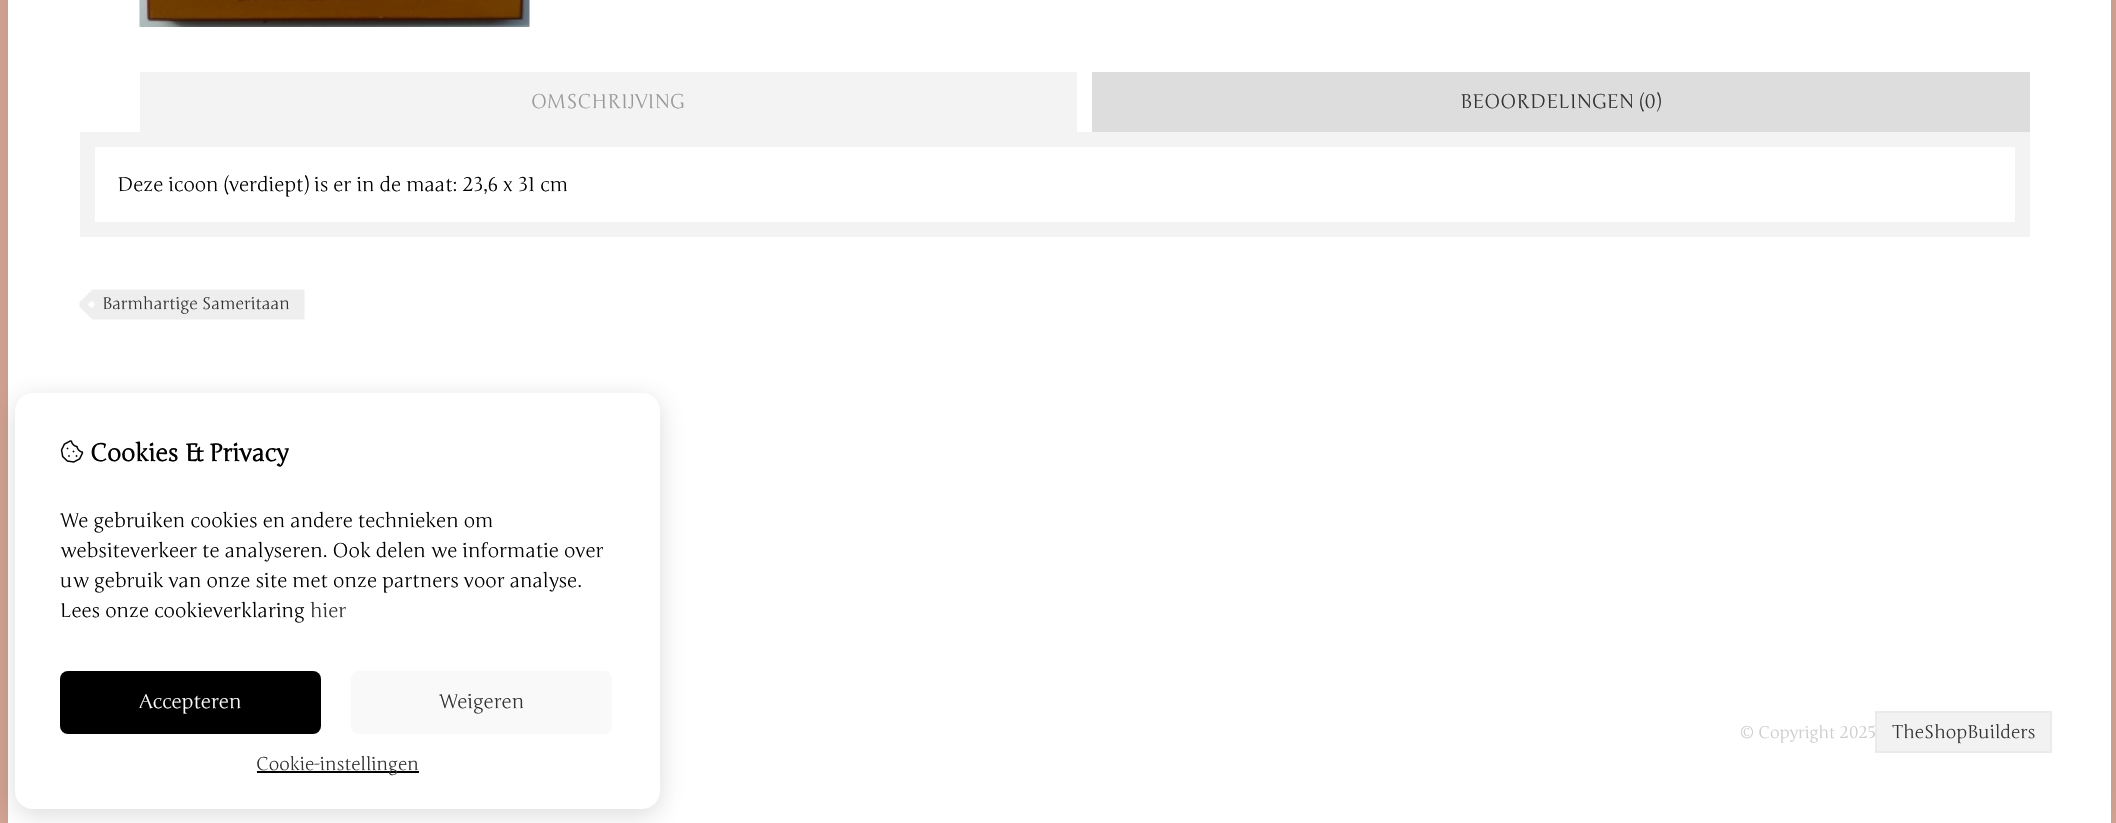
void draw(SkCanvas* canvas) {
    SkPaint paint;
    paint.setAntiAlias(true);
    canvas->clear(0xFFD6A694);
    paint.setColor(0x1A000000);
    paint.setMaskFilter(SkMaskFilter::MakeBlur(kNormal_SkBlurStyle, 15));
    canvas->drawRect(SkRect::MakeXYWH(8, -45, 2103, 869), paint);
    paint.setMaskFilter(nullptr);
    paint.setColor(0xFFFFFFFF);
    canvas->drawRect(SkRect::MakeXYWH(8, 0, 2103, 823), paint);
    canvas->drawImageRect(SkImages::DeferredFromEncodedData(SkData::MakeFromFileName("img1.png")), SkRect::MakeXYWH(139, 0, 391, 27), SkSamplingOptions());
    paint.setColor(0xFFF3F3F3);
    canvas->drawRect(SkRect::MakeXYWH(140, 72, 937, 60), paint);
    SkFont font1(fontMgr->matchFamilyStyle("Junge", SkFontStyle::Normal()), 19.5f);
    font1.setSubpixel(true);
    paint.setColor(0xFF999999);
    canvas->drawString("OMSCHRIJVING", 531, 108, font1, paint);
    paint.setColor(0xFFDDDDDD);
    canvas->drawRect(SkRect::MakeXYWH(1092, 72, 938, 60), paint);
    paint.setColor(0xFF333333);
    canvas->drawString("BEOORDELINGEN (0)", 1460, 108, font1, paint);
    paint.setStyle(SkPaint::kStroke_Style);
    paint.setStrokeWidth(15);
    paint.setColor(0xFFF3F3F3);
    canvas->drawRect(SkRect::MakeXYWH(87.5f, 139.5f, 1935, 90), paint);
    paint.setStyle(SkPaint::kFill_Style);
    paint.setColor(0xFF000000);
    canvas->drawString("Deze icoon (verdiept) is er in de maat: 23,6 x 31 cm", 117, 191, font1, paint);
    canvas->drawImageRect(SkImages::DeferredFromEncodedData(SkData::MakeFromFileName("img2.png")), SkRect::MakeXYWH(79, 289, 226, 31), SkSamplingOptions());
    SkFont font2(fontMgr->matchFamilyStyle("Junge", SkFontStyle::Normal()), 16.5f);
    font2.setSubpixel(true);
    paint.setColor(0xFF333333);
    canvas->drawString("Barmhartige Sameritaan", 102, 309, font2, paint);
    paint.setColor(0xFFCCCCCC);
    canvas->drawString("© Copyright 2025", 1740, 738, font2, paint);
    paint.setColor(0xFFF2F2F2);
    canvas->drawRect(SkRect::MakeXYWH(1876, 712, 175, 40), paint);
    paint.setStyle(SkPaint::kStroke_Style);
    paint.setStrokeWidth(2);
    paint.setColor(0xFFEBEBEB);
    canvas->drawRect(SkRect::MakeXYWH(1876, 712, 175, 40), paint);
    SkFont font3(fontMgr->matchFamilyStyle("Junge", SkFontStyle::Normal()), 18);
    font3.setSubpixel(true);
    paint.setStyle(SkPaint::kFill_Style);
    paint.setColor(0xFF333333);
    canvas->drawString("TheShopBuilders", 1892, 738, font3, paint);
    paint.setColor(0x334C4C4C);
    paint.setMaskFilter(SkMaskFilter::MakeBlur(kNormal_SkBlurStyle, 13));
    canvas->drawRoundRect(SkRect::MakeXYWH(15, 399, 645, 416), 18, 18, paint);
    paint.setMaskFilter(nullptr);
    paint.setColor(0xFFFFFFFF);
    canvas->drawRoundRect(SkRect::MakeXYWH(15, 393, 645, 416), 18, 18, paint);
    canvas->drawImageRect(SkImages::DeferredFromEncodedData(SkData::MakeFromFileName("img3.png")), SkRect::MakeXYWH(60, 440, 24, 23), SkSamplingOptions());
    SkFont font4(fontMgr->matchFamilyStyle("Junge", SkFontStyle::Bold()), 24);
    font4.setSubpixel(true);
    paint.setColor(0xFF000000);
    canvas->drawString("Cookies & Privacy", 90, 461, font4, paint);
    canvas->drawString("We gebruiken cookies en andere technieken om", 60, 527, font1, paint);
    canvas->drawString("websiteverkeer te analyseren. Ook delen we informatie over", 60, 557, font1, paint);
    canvas->drawString("uw gebruik van onze site met onze partners voor analyse.", 60, 587, font1, paint);
    canvas->drawString("Lees onze cookieverklaring", 60, 617, font1, paint);
    paint.setColor(0xFF333333);
    canvas->drawString("hier", 310, 617, font1, paint);
    paint.setColor(0xFF000000);
    canvas->drawRoundRect(SkRect::MakeXYWH(60, 671, 261, 63), 8, 8, paint);
    paint.setColor(0xFFFFFFFF);
    canvas->drawString("Accepteren", 139, 708, font1, paint);
    paint.setColor(0xFFF9F9F9);
    canvas->drawRoundRect(SkRect::MakeXYWH(351, 671, 261, 63), 8, 8, paint);
    paint.setColor(0xFF333333);
    canvas->drawString("Weigeren", 439, 708, font1, paint);
    paint.setColor(0xFF000000);
    canvas->drawRect(SkRect::MakeXYWH(257, 771, 162, 2), paint);
    paint.setColor(0xFF333333);
    canvas->drawString("Cookie-instellingen", 256, 770, font3, paint);
}
